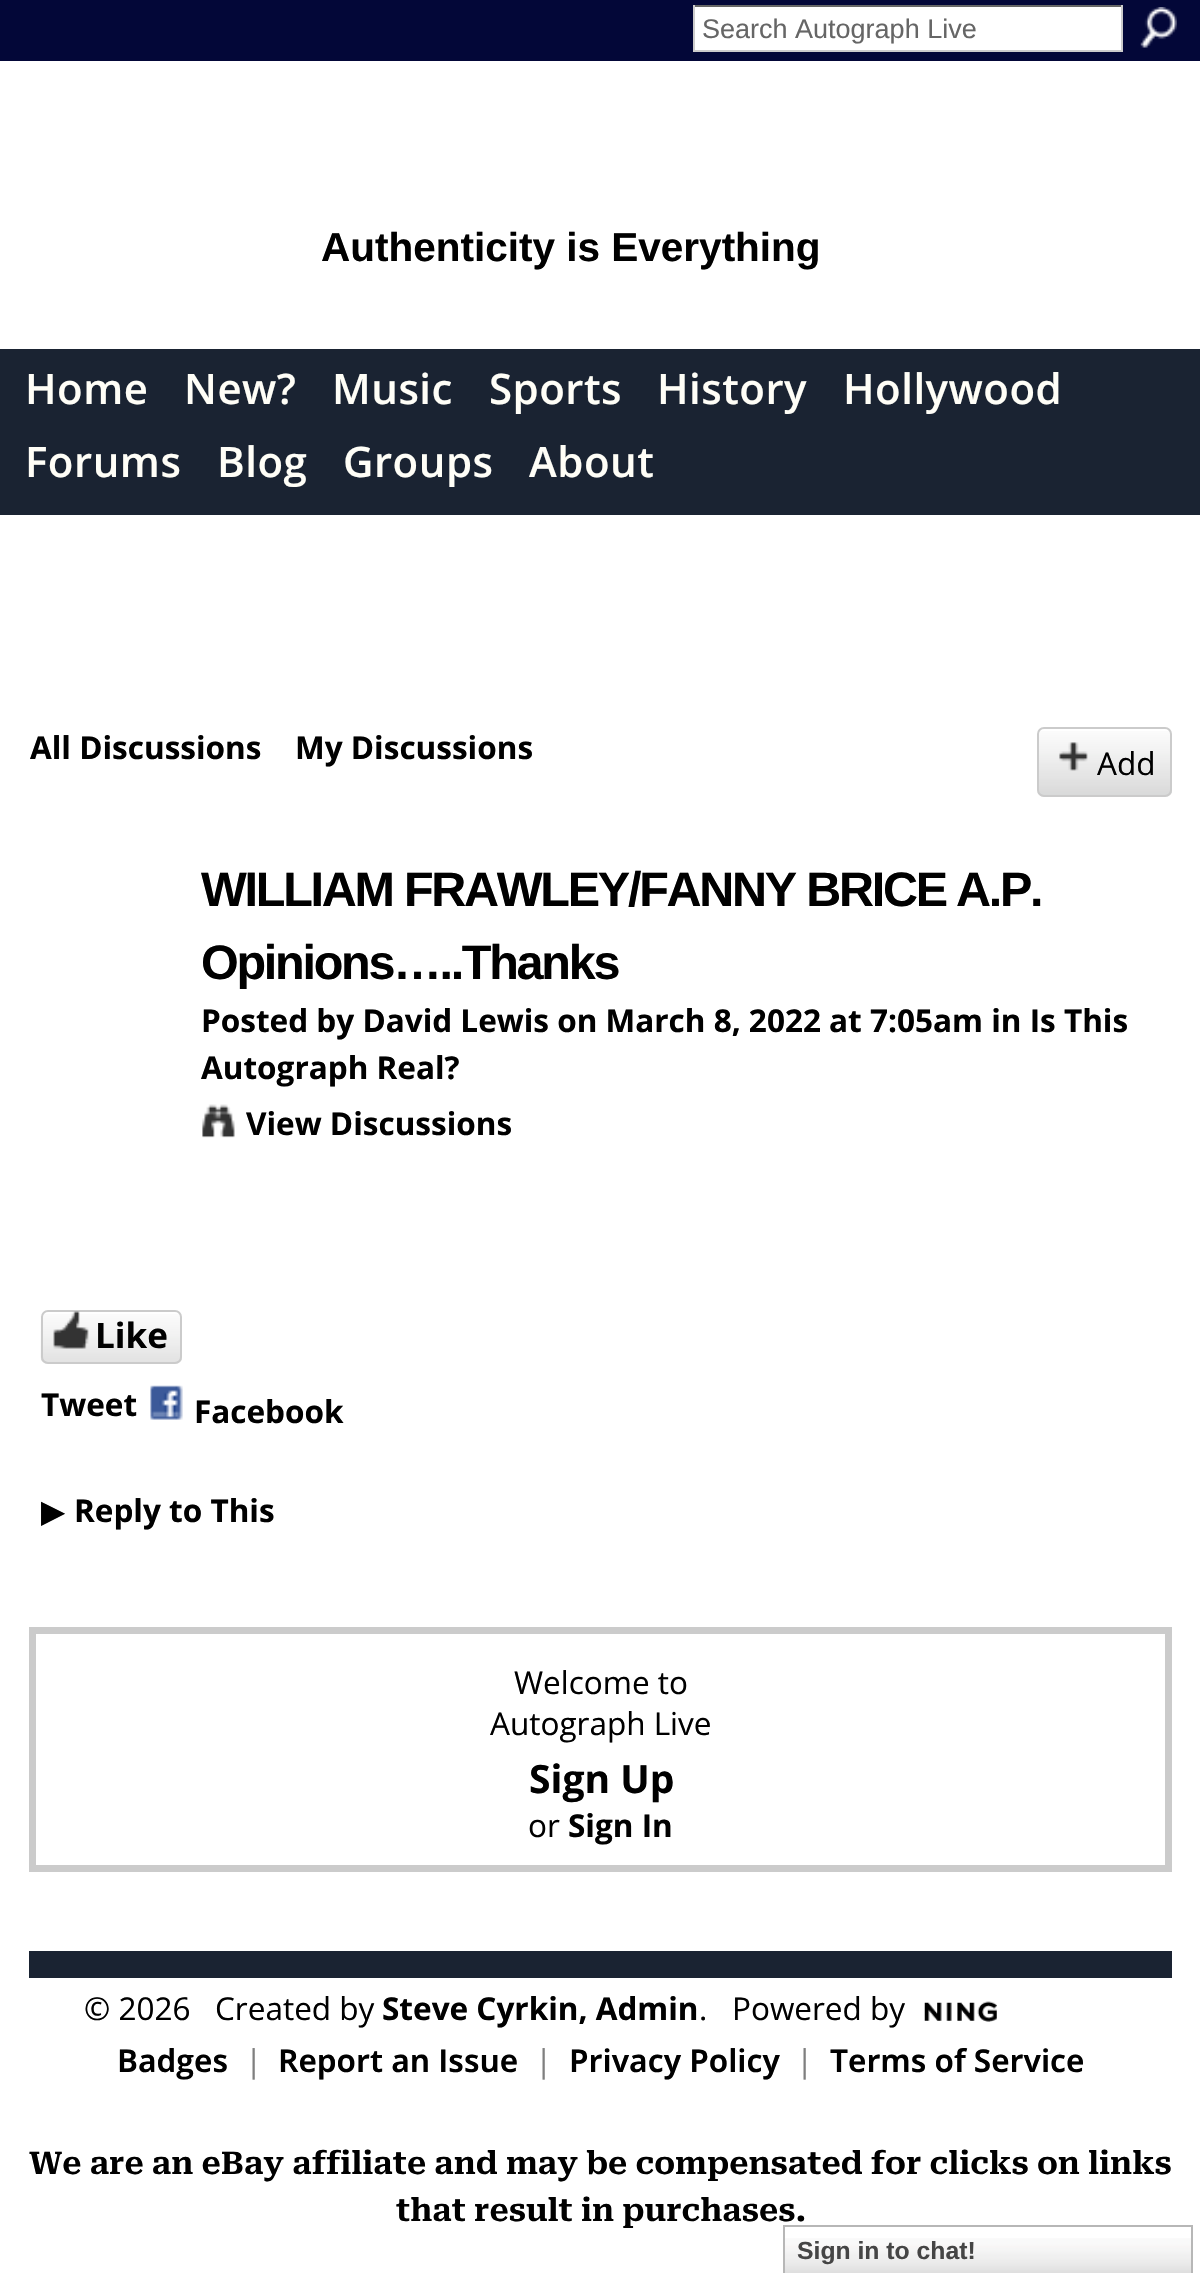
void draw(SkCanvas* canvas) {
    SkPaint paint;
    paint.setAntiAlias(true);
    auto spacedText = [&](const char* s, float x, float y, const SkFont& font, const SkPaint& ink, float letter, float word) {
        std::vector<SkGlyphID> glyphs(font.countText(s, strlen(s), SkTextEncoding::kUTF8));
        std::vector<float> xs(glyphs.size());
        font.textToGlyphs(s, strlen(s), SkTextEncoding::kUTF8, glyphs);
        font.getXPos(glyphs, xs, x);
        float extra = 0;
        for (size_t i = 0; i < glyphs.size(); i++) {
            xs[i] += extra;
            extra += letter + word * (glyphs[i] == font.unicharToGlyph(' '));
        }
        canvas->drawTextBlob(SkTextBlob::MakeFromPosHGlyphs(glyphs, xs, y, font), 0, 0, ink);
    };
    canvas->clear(0xFFFFFFFF);
    paint.setColor(0xFF030738);
    canvas->drawRect(SkRect::MakeXYWH(0, 0, 1200, 61), paint);
    paint.setColor(0xFFFFFFFF);
    canvas->drawRect(SkRect::MakeXYWH(695, 7, 426, 43), paint);
    paint.setColor(0xFF666666);
    canvas->drawRect(SkRect::MakeXYWH(693, 5, 430, 2), paint);
    paint.setColor(0xFFCCCCCC);
    canvas->drawRect(SkRect::MakeXYWH(1121, 5, 2, 47), paint);
    canvas->drawRect(SkRect::MakeXYWH(693, 50, 430, 2), paint);
    canvas->drawRect(SkRect::MakeXYWH(693, 5, 2, 47), paint);
    SkFont font1(fontMgr->matchFamilyStyle("Liberation Sans", SkFontStyle::Normal()), 27);
    font1.setSubpixel(true);
    paint.setColor(0xFF666666);
    canvas->drawString("Search Autograph Live", 702, 38, font1, paint);
    canvas->drawImageRect(SkImages::DeferredFromEncodedData(SkData::MakeFromFileName("img1.png")), SkRect::MakeXYWH(1140, 7, 37, 41), SkSamplingOptions());
    SkFont font2(fontMgr->matchFamilyStyle("Liberation Sans", SkFontStyle::Bold()), 40.5f);
    font2.setSubpixel(true);
    paint.setColor(0xFF000000);
    canvas->drawString("Authenticity is Everything", 321, 261, font2, paint);
    paint.setColor(0xFF1A2332);
    canvas->drawRect(SkRect::MakeXYWH(0, 349, 1200, 166), paint);
    SkFont font3(fontMgr->matchFamilyStyle("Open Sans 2", SkFontStyle(600, SkFontStyle::kNormal_Width, SkFontStyle::kUpright_Slant)), 42);
    font3.setSubpixel(true);
    paint.setColor(0xFFFFFEF7);
    spacedText("Home", 25, 404, font3, paint, 0.5f, 0);
    spacedText("New?", 184, 404, font3, paint, 0.5f, 0);
    spacedText("Music", 332, 404, font3, paint, 0.5f, 0);
    spacedText("Sports", 489, 404, font3, paint, 0.5f, 0);
    spacedText("History", 657, 404, font3, paint, 0.5f, 0);
    spacedText("Hollywood", 843, 404, font3, paint, 0.5f, 0);
    spacedText("Forums", 25, 477, font3, paint, 0.5f, 0);
    spacedText("Blog", 217, 477, font3, paint, 0.5f, 0);
    spacedText("Groups", 343, 477, font3, paint, 0.5f, 0);
    spacedText("About", 529, 477, font3, paint, 0.5f, 0);
    SkFont font4(fontMgr->matchFamilyStyle("Open Sans", SkFontStyle::Bold()), 31.5f);
    font4.setSubpixel(true);
    paint.setColor(0xFF000000);
    canvas->drawString("All Discussions", 30, 759, font4, paint);
    canvas->drawString("My Discussions", 295, 759, font4, paint);
    canvas->drawImageRect(SkImages::DeferredFromEncodedData(SkData::MakeFromFileName("img2.png")), SkRect::MakeXYWH(1037, 731, 135, 66), SkSamplingOptions());
    paint.setStyle(SkPaint::kStroke_Style);
    paint.setStrokeWidth(2);
    paint.setColor(0xFFCBCBCB);
    canvas->drawRoundRect(SkRect::MakeXYWH(1038, 728, 133, 68), 6, 6, paint);
    canvas->drawImageRect(SkImages::DeferredFromEncodedData(SkData::MakeFromFileName("img3.png")), SkRect::MakeXYWH(1059, 742, 29, 29), SkSamplingOptions());
    SkFont font5(fontMgr->matchFamilyStyle("Open Sans", SkFontStyle::Normal()), 31.5f);
    font5.setSubpixel(true);
    paint.setStyle(SkPaint::kFill_Style);
    paint.setColor(0xFF000000);
    canvas->drawString("Add", 1097, 775, font5, paint);
    SkFont font6(fontMgr->matchFamilyStyle("Liberation Sans", SkFontStyle::Bold()), 48.5f);
    font6.setSubpixel(true);
    spacedText("WILLIAM FRAWLEY/FANNY BRICE", 201, 906, font6, paint, -2.25f, 0);
    spacedText("A.P.", 956, 906, font6, paint, -2.25f, 0);
    spacedText("Opinions…..Thanks", 201, 979, font6, paint, -2.25f, 0);
    canvas->drawString("Posted by David Lewis on March 8, 2022 at 7:05am in Is This", 201, 1032, font4, paint);
    canvas->drawString("Autograph Real?", 201, 1079, font4, paint);
    canvas->drawImageRect(SkImages::DeferredFromEncodedData(SkData::MakeFromFileName("img4.png")), SkRect::MakeXYWH(202, 1104, 33, 34), SkSamplingOptions());
    canvas->drawString("View Discussions", 246, 1135, font4, paint);
    canvas->drawImageRect(SkImages::DeferredFromEncodedData(SkData::MakeFromFileName("img5.png")), SkRect::MakeXYWH(40, 1314, 142, 50), SkSamplingOptions());
    paint.setStyle(SkPaint::kStroke_Style);
    paint.setColor(0xFFCBCBCB);
    canvas->drawRoundRect(SkRect::MakeXYWH(42, 1311, 139, 52), 6, 6, paint);
    canvas->drawImageRect(SkImages::DeferredFromEncodedData(SkData::MakeFromFileName("img6.png")), SkRect::MakeXYWH(53, 1311, 36, 38), SkSamplingOptions());
    SkFont font7(fontMgr->matchFamilyStyle("Open Sans", SkFontStyle::Bold()), 35);
    font7.setSubpixel(true);
    paint.setStyle(SkPaint::kFill_Style);
    paint.setColor(0xFF000000);
    canvas->drawString("Like", 95, 1348, font7, paint);
    canvas->drawString("Tweet", 41, 1416, font4, paint);
    canvas->drawImageRect(SkImages::DeferredFromEncodedData(SkData::MakeFromFileName("img7.png")), SkRect::MakeXYWH(150, 1385, 33, 35), SkSamplingOptions());
    canvas->drawString("Facebook", 194, 1423, font4, paint);
    SkFont font8(fontMgr->matchFamilyStyle("DejaVu Sans", SkFontStyle::Normal()), 31.5f);
    font8.setSubpixel(true);
    canvas->drawString("▶", 41, 1522, font8, paint);
    canvas->drawString("Reply to This", 74, 1522, font4, paint);
    paint.setStyle(SkPaint::kStroke_Style);
    paint.setStrokeWidth(7);
    paint.setColor(0xFFCBCBCB);
    canvas->drawRect(SkRect::MakeXYWH(32.5f, 1630.5f, 1136, 238), paint);
    paint.setStyle(SkPaint::kFill_Style);
    paint.setColor(0xFF000000);
    canvas->drawString("Welcome to", 514, 1694, font5, paint);
    canvas->drawString("Autograph Live", 490, 1735, font5, paint);
    SkFont font9(fontMgr->matchFamilyStyle("Open Sans", SkFontStyle::Bold()), 39);
    font9.setSubpixel(true);
    canvas->drawString("Sign Up", 529, 1793, font9, paint);
    canvas->drawString("or", 528, 1837, font5, paint);
    canvas->drawString("Sign In", 568, 1837, font4, paint);
    paint.setColor(0xFF1A2332);
    canvas->drawRect(SkRect::MakeXYWH(29, 1951, 1143, 27), paint);
    paint.setColor(0xFF000000);
    canvas->drawString("© 2026", 84, 2020, font5, paint);
    canvas->drawString("Created by", 215, 2020, font5, paint);
    canvas->drawString("Steve Cyrkin, Admin", 382, 2020, font4, paint);
    canvas->drawString(".", 699, 2020, font5, paint);
    canvas->drawString("Powered by", 732, 2020, font5, paint);
    canvas->drawImageRect(SkImages::DeferredFromEncodedData(SkData::MakeFromFileName("img8.png")), SkRect::MakeXYWH(924, 2001, 73, 21), SkSamplingOptions());
    SkFont font10(fontMgr->matchFamilyStyle("Open Sans", SkFontStyle(600, SkFontStyle::kNormal_Width, SkFontStyle::kUpright_Slant)), 31.5f);
    font10.setSubpixel(true);
    canvas->drawString("Badges", 117, 2072, font10, paint);
    paint.setColor(0xFF7F7F7F);
    canvas->drawString("|", 245, 2072, font5, paint);
    paint.setColor(0xFF000000);
    canvas->drawString("Report an Issue", 278, 2072, font10, paint);
    paint.setColor(0xFF7F7F7F);
    canvas->drawString("|", 535, 2072, font5, paint);
    paint.setColor(0xFF000000);
    canvas->drawString("Privacy Policy", 569, 2072, font10, paint);
    paint.setColor(0xFF7F7F7F);
    canvas->drawString("|", 796, 2072, font5, paint);
    paint.setColor(0xFF000000);
    canvas->drawString("Terms of Service", 830, 2072, font10, paint);
    SkFont font11(fontMgr->matchFamilyStyle("Roboto Serif", SkFontStyle(600, SkFontStyle::kNormal_Width, SkFontStyle::kUpright_Slant)), 31.5f);
    font11.setSubpixel(true);
    canvas->drawString("We are an eBay affiliate and may be compensated for clicks on links", 29, 2174, font11, paint);
    canvas->drawString("that result in purchases.", 396, 2221, font11, paint);
    canvas->drawImageRect(SkImages::DeferredFromEncodedData(SkData::MakeFromFileName("img9.png")), SkRect::MakeXYWH(785, 2238, 406, 35), SkSamplingOptions());
    paint.setStyle(SkPaint::kStroke_Style);
    paint.setStrokeWidth(2);
    paint.setColor(0xFFB7B7B7);
    canvas->drawRect(SkRect::MakeXYWH(784, 2226, 408, 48), paint);
    SkFont font12(fontMgr->matchFamilyStyle("Liberation Sans", SkFontStyle::Bold()), 24.75f);
    font12.setSubpixel(true);
    paint.setStyle(SkPaint::kFill_Style);
    paint.setColor(0xFF454545);
    canvas->drawString("Sign in to chat!", 797, 2259, font12, paint);
}
